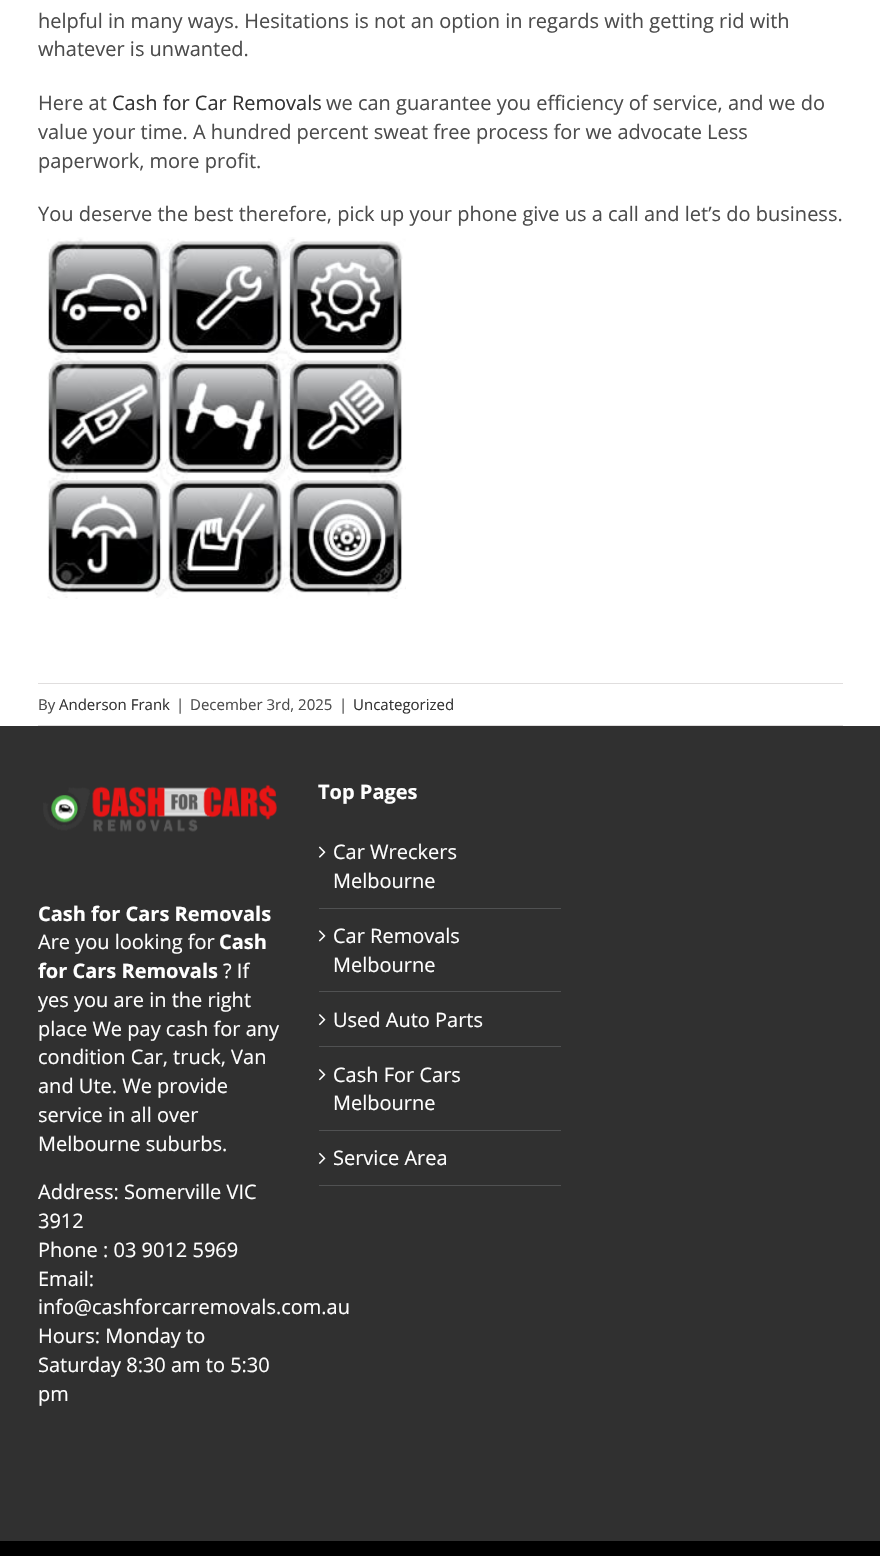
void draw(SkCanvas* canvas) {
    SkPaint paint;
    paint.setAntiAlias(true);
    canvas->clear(0xFFFFFFFF);
    SkFont font1(fontMgr->matchFamilyStyle("Open Sans", SkFontStyle::Normal()), 20);
    font1.setSubpixel(true);
    paint.setColor(0xFF4C4C4C);
    canvas->drawString("helpful in many ways. Hesitations is not an option in regards with getting rid with", 38, 28, font1, paint);
    canvas->drawString("whatever is unwanted.", 38, 56, font1, paint);
    canvas->drawString("Here at", 38, 110, font1, paint);
    paint.setColor(0xFF333333);
    canvas->drawString("Cash for Car Removals", 112, 110, font1, paint);
    paint.setColor(0xFF4C4C4C);
    canvas->drawString("we can guarantee you efficiency of service, and we do", 326, 110, font1, paint);
    canvas->drawString("value your time. A hundred percent sweat free process for we advocate Less", 38, 139, font1, paint);
    canvas->drawString("paperwork, more profit.", 38, 168, font1, paint);
    canvas->drawString("You deserve the best therefore, pick up your phone give us a call and let’s do business.", 38, 221, font1, paint);
    canvas->drawImageRect(SkImages::DeferredFromEncodedData(SkData::MakeFromFileName("img1.png")), SkRect::MakeXYWH(47, 237, 359, 362), SkSamplingOptions());
    paint.setColor(0xFFE0DEDE);
    canvas->drawRect(SkRect::MakeXYWH(38, 683, 805, 1), paint);
    canvas->drawRect(SkRect::MakeXYWH(38, 725, 805, 1), paint);
    SkFont font2(fontMgr->matchFamilyStyle("Open Sans", SkFontStyle::Normal()), 15);
    font2.setSubpixel(true);
    paint.setColor(0xFF4C4C4C);
    canvas->drawString("By", 38, 710, font2, paint);
    paint.setColor(0xFF333333);
    canvas->drawString("Anderson Frank", 59, 710, font2, paint);
    paint.setColor(0xFF4C4C4C);
    canvas->drawString("|", 176, 710, font2, paint);
    canvas->drawString("December 3rd, 2025", 190, 710, font2, paint);
    canvas->drawString("|", 339, 710, font2, paint);
    paint.setColor(0xFF333333);
    canvas->drawString("Uncategorized", 353, 710, font2, paint);
    paint.setColor(0xFF303030);
    canvas->drawRect(SkRect::MakeXYWH(0, 726, 880, 815), paint);
    canvas->drawImageRect(SkImages::DeferredFromEncodedData(SkData::MakeFromFileName("img2.png")), SkRect::MakeXYWH(43, 784, 234, 48), SkSamplingOptions());
    SkFont font3(fontMgr->matchFamilyStyle("Open Sans", SkFontStyle::Bold()), 20);
    font3.setSubpixel(true);
    paint.setColor(0xFFFFFFFF);
    canvas->drawString("Cash for Cars Removals", 38, 921, font3, paint);
    canvas->drawString("Are you looking for", 38, 949, font1, paint);
    canvas->drawString("Cash", 219, 949, font3, paint);
    canvas->drawString("for Cars Removals", 38, 978, font3, paint);
    canvas->drawString("? If", 223, 978, font1, paint);
    canvas->drawString("yes you are in the right", 38, 1007, font1, paint);
    canvas->drawString("place We pay cash for any", 38, 1036, font1, paint);
    canvas->drawString("condition Car, truck, Van", 38, 1064, font1, paint);
    canvas->drawString("and Ute. We provide", 38, 1093, font1, paint);
    canvas->drawString("service in all over", 38, 1122, font1, paint);
    canvas->drawString("Melbourne suburbs.", 38, 1151, font1, paint);
    canvas->drawString("Address: Somerville VIC", 38, 1199, font1, paint);
    canvas->drawString("3912", 38, 1228, font1, paint);
    canvas->drawString("Phone : 03 9012 5969", 38, 1257, font1, paint);
    canvas->drawString("Email:", 38, 1286, font1, paint);
    canvas->drawString("info@cashforcarremovals.com.au", 38, 1314, font1, paint);
    canvas->drawString("Hours: Monday to", 38, 1343, font1, paint);
    canvas->drawString("Saturday 8:30 am to 5:30", 38, 1372, font1, paint);
    canvas->drawString("pm", 38, 1401, font1, paint);
    canvas->drawString("Top Pages", 318, 799, font3, paint);
    paint.setColor(0xFF505152);
    canvas->drawRect(SkRect::MakeXYWH(319, 908, 242, 1), paint);
    canvas->drawImageRect(SkImages::DeferredFromEncodedData(SkData::MakeFromFileName("img3.png")), SkRect::MakeXYWH(318, 846, 8, 12), SkSamplingOptions());
    paint.setColor(0xFFFFFFFF);
    canvas->drawString("Car Wreckers", 333, 859, font1, paint);
    canvas->drawString("Melbourne", 333, 888, font1, paint);
    paint.setColor(0xFF505152);
    canvas->drawRect(SkRect::MakeXYWH(319, 991, 242, 1), paint);
    canvas->drawImageRect(SkImages::DeferredFromEncodedData(SkData::MakeFromFileName("img4.png")), SkRect::MakeXYWH(318, 930, 8, 12), SkSamplingOptions());
    paint.setColor(0xFFFFFFFF);
    canvas->drawString("Car Removals", 333, 943, font1, paint);
    canvas->drawString("Melbourne", 333, 972, font1, paint);
    paint.setColor(0xFF505152);
    canvas->drawRect(SkRect::MakeXYWH(319, 1046, 242, 1), paint);
    canvas->drawImageRect(SkImages::DeferredFromEncodedData(SkData::MakeFromFileName("img5.png")), SkRect::MakeXYWH(318, 1014, 8, 12), SkSamplingOptions());
    paint.setColor(0xFFFFFFFF);
    canvas->drawString("Used Auto Parts", 333, 1027, font1, paint);
    paint.setColor(0xFF505152);
    canvas->drawRect(SkRect::MakeXYWH(319, 1130, 242, 1), paint);
    canvas->drawImageRect(SkImages::DeferredFromEncodedData(SkData::MakeFromFileName("img5.png")), SkRect::MakeXYWH(318, 1069, 8, 12), SkSamplingOptions());
    paint.setColor(0xFFFFFFFF);
    canvas->drawString("Cash For Cars", 333, 1082, font1, paint);
    canvas->drawString("Melbourne", 333, 1110, font1, paint);
    paint.setColor(0xFF505152);
    canvas->drawRect(SkRect::MakeXYWH(319, 1185, 242, 1), paint);
    canvas->drawImageRect(SkImages::DeferredFromEncodedData(SkData::MakeFromFileName("img6.png")), SkRect::MakeXYWH(318, 1152, 8, 12), SkSamplingOptions());
    paint.setColor(0xFFFFFFFF);
    canvas->drawString("Service Area", 333, 1165, font1, paint);
    paint.setColor(0xFF000000);
    canvas->drawRect(SkRect::MakeXYWH(0, 1541, 880, 15), paint);
}
